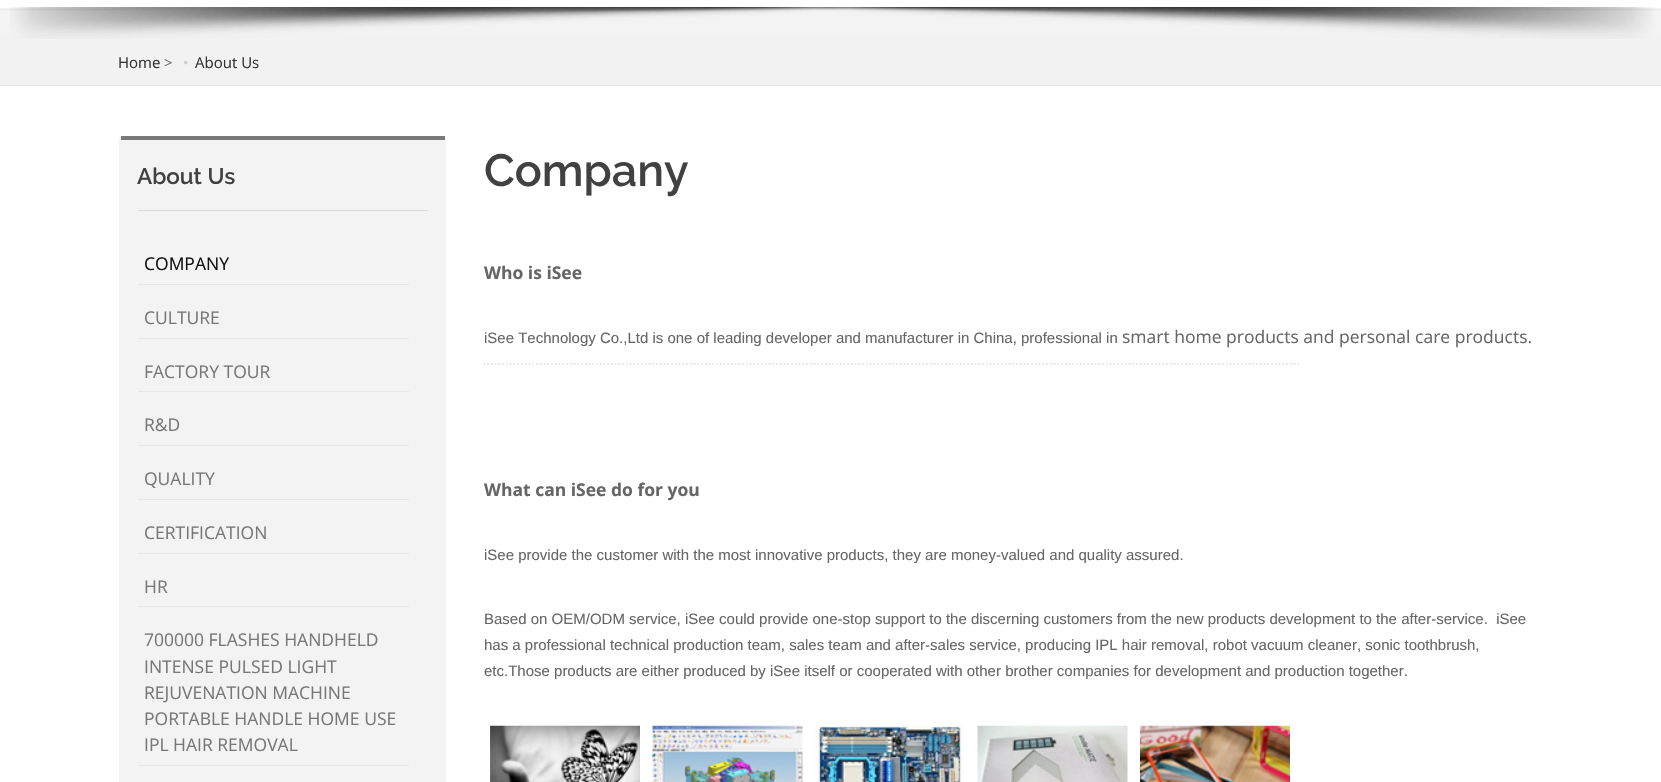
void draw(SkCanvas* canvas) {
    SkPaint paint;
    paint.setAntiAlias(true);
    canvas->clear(0xFFFFFFFF);
    paint.setColor(0xFFF3F3F3);
    canvas->drawRect(SkRect::MakeXYWH(0, 9, 1661, 26), paint);
    paint.setColor(0x1A000000);
    paint.setMaskFilter(SkMaskFilter::MakeBlur(kNormal_SkBlurStyle, 1));
    canvas->drawRect(SkRect::MakeXYWH(0, -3, 1661, 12), paint);
    paint.setMaskFilter(nullptr);
    paint.setColor(0xFFFFFFFF);
    canvas->drawRect(SkRect::MakeXYWH(0, 0, 1661, 8), paint);
    paint.setColor(0xFFF2F2F2);
    canvas->drawRect(SkRect::MakeXYWH(0, 8, 1661, 1), paint);
    canvas->drawRect(SkRect::MakeXYWH(0, 35, 1661, 50), paint);
    canvas->drawImageRect(SkImages::DeferredFromEncodedData(SkData::MakeFromFileName("img1.png")), SkRect::MakeXYWH(10, 7, 1643, 32), SkSamplingOptions());
    paint.setColor(0xFFE6E6E6);
    canvas->drawRect(SkRect::MakeXYWH(0, 85, 1661, 1), paint);
    SkFont font1(fontMgr->matchFamilyStyle("Open Sans", SkFontStyle::Normal()), 15);
    font1.setSubpixel(true);
    paint.setColor(0xFF333333);
    canvas->drawString("Home", 118, 68, font1, paint);
    paint.setColor(0xFF666666);
    canvas->drawString(">", 164, 68, font1, paint);
    paint.setColor(0xFFCCCCCC);
    canvas->drawString("•", 183, 68, font1, paint);
    paint.setColor(0xFF333333);
    canvas->drawString("About Us", 195, 68, font1, paint);
    paint.setColor(0xFFF3F3F3);
    canvas->drawRoundRect(SkRect::MakeXYWH(119, 136, 327, 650), 4, 4, paint);
    paint.setColor(0x80000000);
    canvas->drawRect(SkRect::MakeXYWH(121, 136, 324, 4), paint);
    paint.setColor(0xFFDBDBDB);
    canvas->drawRect(SkRect::MakeXYWH(138, 210, 290, 1), paint);
    SkFont font2(fontMgr->matchFamilyStyle("Raleway", SkFontStyle(600, SkFontStyle::kNormal_Width, SkFontStyle::kUpright_Slant)), 22.5f);
    font2.setSubpixel(true);
    paint.setColor(0xFF414141);
    canvas->drawString("About Us", 137, 184, font2, paint);
    paint.setColor(0xFFE7E7E7);
    canvas->drawRect(SkRect::MakeXYWH(138, 284, 271, 1), paint);
    SkFont font3(fontMgr->matchFamilyStyle("Open Sans", SkFontStyle::Normal()), 17.5f);
    font3.setSubpixel(true);
    paint.setColor(0xFF111111);
    canvas->drawString("COMPANY", 144, 270, font3, paint);
    paint.setColor(0xFFE7E7E7);
    canvas->drawRect(SkRect::MakeXYWH(138, 338, 271, 1), paint);
    paint.setColor(0xFF777777);
    canvas->drawString("CULTURE", 144, 324, font3, paint);
    paint.setColor(0xFFE7E7E7);
    canvas->drawRect(SkRect::MakeXYWH(138, 391, 271, 1), paint);
    paint.setColor(0xFF777777);
    canvas->drawString("FACTORY TOUR", 144, 378, font3, paint);
    paint.setColor(0xFFE7E7E7);
    canvas->drawRect(SkRect::MakeXYWH(138, 445, 271, 1), paint);
    paint.setColor(0xFF777777);
    canvas->drawString("R&D", 144, 431, font3, paint);
    paint.setColor(0xFFE7E7E7);
    canvas->drawRect(SkRect::MakeXYWH(138, 499, 271, 1), paint);
    paint.setColor(0xFF777777);
    canvas->drawString("QUALITY", 144, 485, font3, paint);
    paint.setColor(0xFFE7E7E7);
    canvas->drawRect(SkRect::MakeXYWH(138, 553, 271, 1), paint);
    paint.setColor(0xFF777777);
    canvas->drawString("CERTIFICATION", 144, 539, font3, paint);
    paint.setColor(0xFFE7E7E7);
    canvas->drawRect(SkRect::MakeXYWH(138, 606, 271, 1), paint);
    paint.setColor(0xFF777777);
    canvas->drawString("HR", 144, 593, font3, paint);
    paint.setColor(0xFFE7E7E7);
    canvas->drawRect(SkRect::MakeXYWH(138, 765, 271, 1), paint);
    paint.setColor(0xFF777777);
    canvas->drawString("700000 FLASHES HANDHELD", 144, 646, font3, paint);
    canvas->drawString("INTENSE PULSED LIGHT", 144, 673, font3, paint);
    canvas->drawString("REJUVENATION MACHINE", 144, 699, font3, paint);
    canvas->drawString("PORTABLE HANDLE HOME USE", 144, 725, font3, paint);
    canvas->drawString("IPL HAIR REMOVAL", 144, 751, font3, paint);
    SkFont font4(fontMgr->matchFamilyStyle("Raleway", SkFontStyle(600, SkFontStyle::kNormal_Width, SkFontStyle::kUpright_Slant)), 45);
    font4.setSubpixel(true);
    paint.setColor(0xFF414141);
    canvas->drawString("Company", 484, 186, font4, paint);
    SkFont font5(fontMgr->matchFamilyStyle("Open Sans", SkFontStyle::Bold()), 17.5f);
    font5.setSubpixel(true);
    paint.setColor(0xFF666666);
    canvas->drawString("Who is iSee", 484, 279, font5, paint);
    SkFont font6(fontMgr->matchFamilyStyle("Liberation Sans", SkFontStyle::Normal()), 15);
    font6.setSubpixel(true);
    canvas->drawString("iSee Technology Co.,Ltd is one of leading developer and manufacturer in China, professional in", 484, 343, font6, paint);
    canvas->drawString("smart home products and personal care products.", 1122, 343, font3, paint);
    canvas->drawImageRect(SkImages::DeferredFromEncodedData(SkData::MakeFromFileName("img2.png")), SkRect::MakeXYWH(483, 363, 816, 2), SkSamplingOptions());
    canvas->drawString("What can iSee do for you", 484, 496, font5, paint);
    canvas->drawString("iSee provide the customer with the most innovative products, they are money-valued and quality assured.", 484, 560, font6, paint);
    canvas->drawString("Based on OEM/ODM service, iSee could provide one-stop support to the discerning customers from the new products development to the after-service.  iSee", 484, 624, font6, paint);
    canvas->drawString("has a professional technical production team, sales team and after-sales service, producing IPL hair removal, robot vacuum cleaner, sonic toothbrush,", 484, 650, font6, paint);
    canvas->drawString("etc.Those products are either produced by iSee itself or cooperated with other brother companies for development and production together.", 484, 676, font6, paint);
    canvas->drawImageRect(SkImages::DeferredFromEncodedData(SkData::MakeFromFileName("img3.png")), SkRect::MakeXYWH(490, 725, 150, 57), SkSamplingOptions());
    canvas->drawImageRect(SkImages::DeferredFromEncodedData(SkData::MakeFromFileName("img4.png")), SkRect::MakeXYWH(652, 725, 151, 57), SkSamplingOptions());
    canvas->drawImageRect(SkImages::DeferredFromEncodedData(SkData::MakeFromFileName("img5.png")), SkRect::MakeXYWH(815, 725, 150, 57), SkSamplingOptions());
    canvas->drawImageRect(SkImages::DeferredFromEncodedData(SkData::MakeFromFileName("img6.png")), SkRect::MakeXYWH(977, 725, 151, 57), SkSamplingOptions());
    canvas->drawImageRect(SkImages::DeferredFromEncodedData(SkData::MakeFromFileName("img7.png")), SkRect::MakeXYWH(1140, 725, 150, 57), SkSamplingOptions());
}
